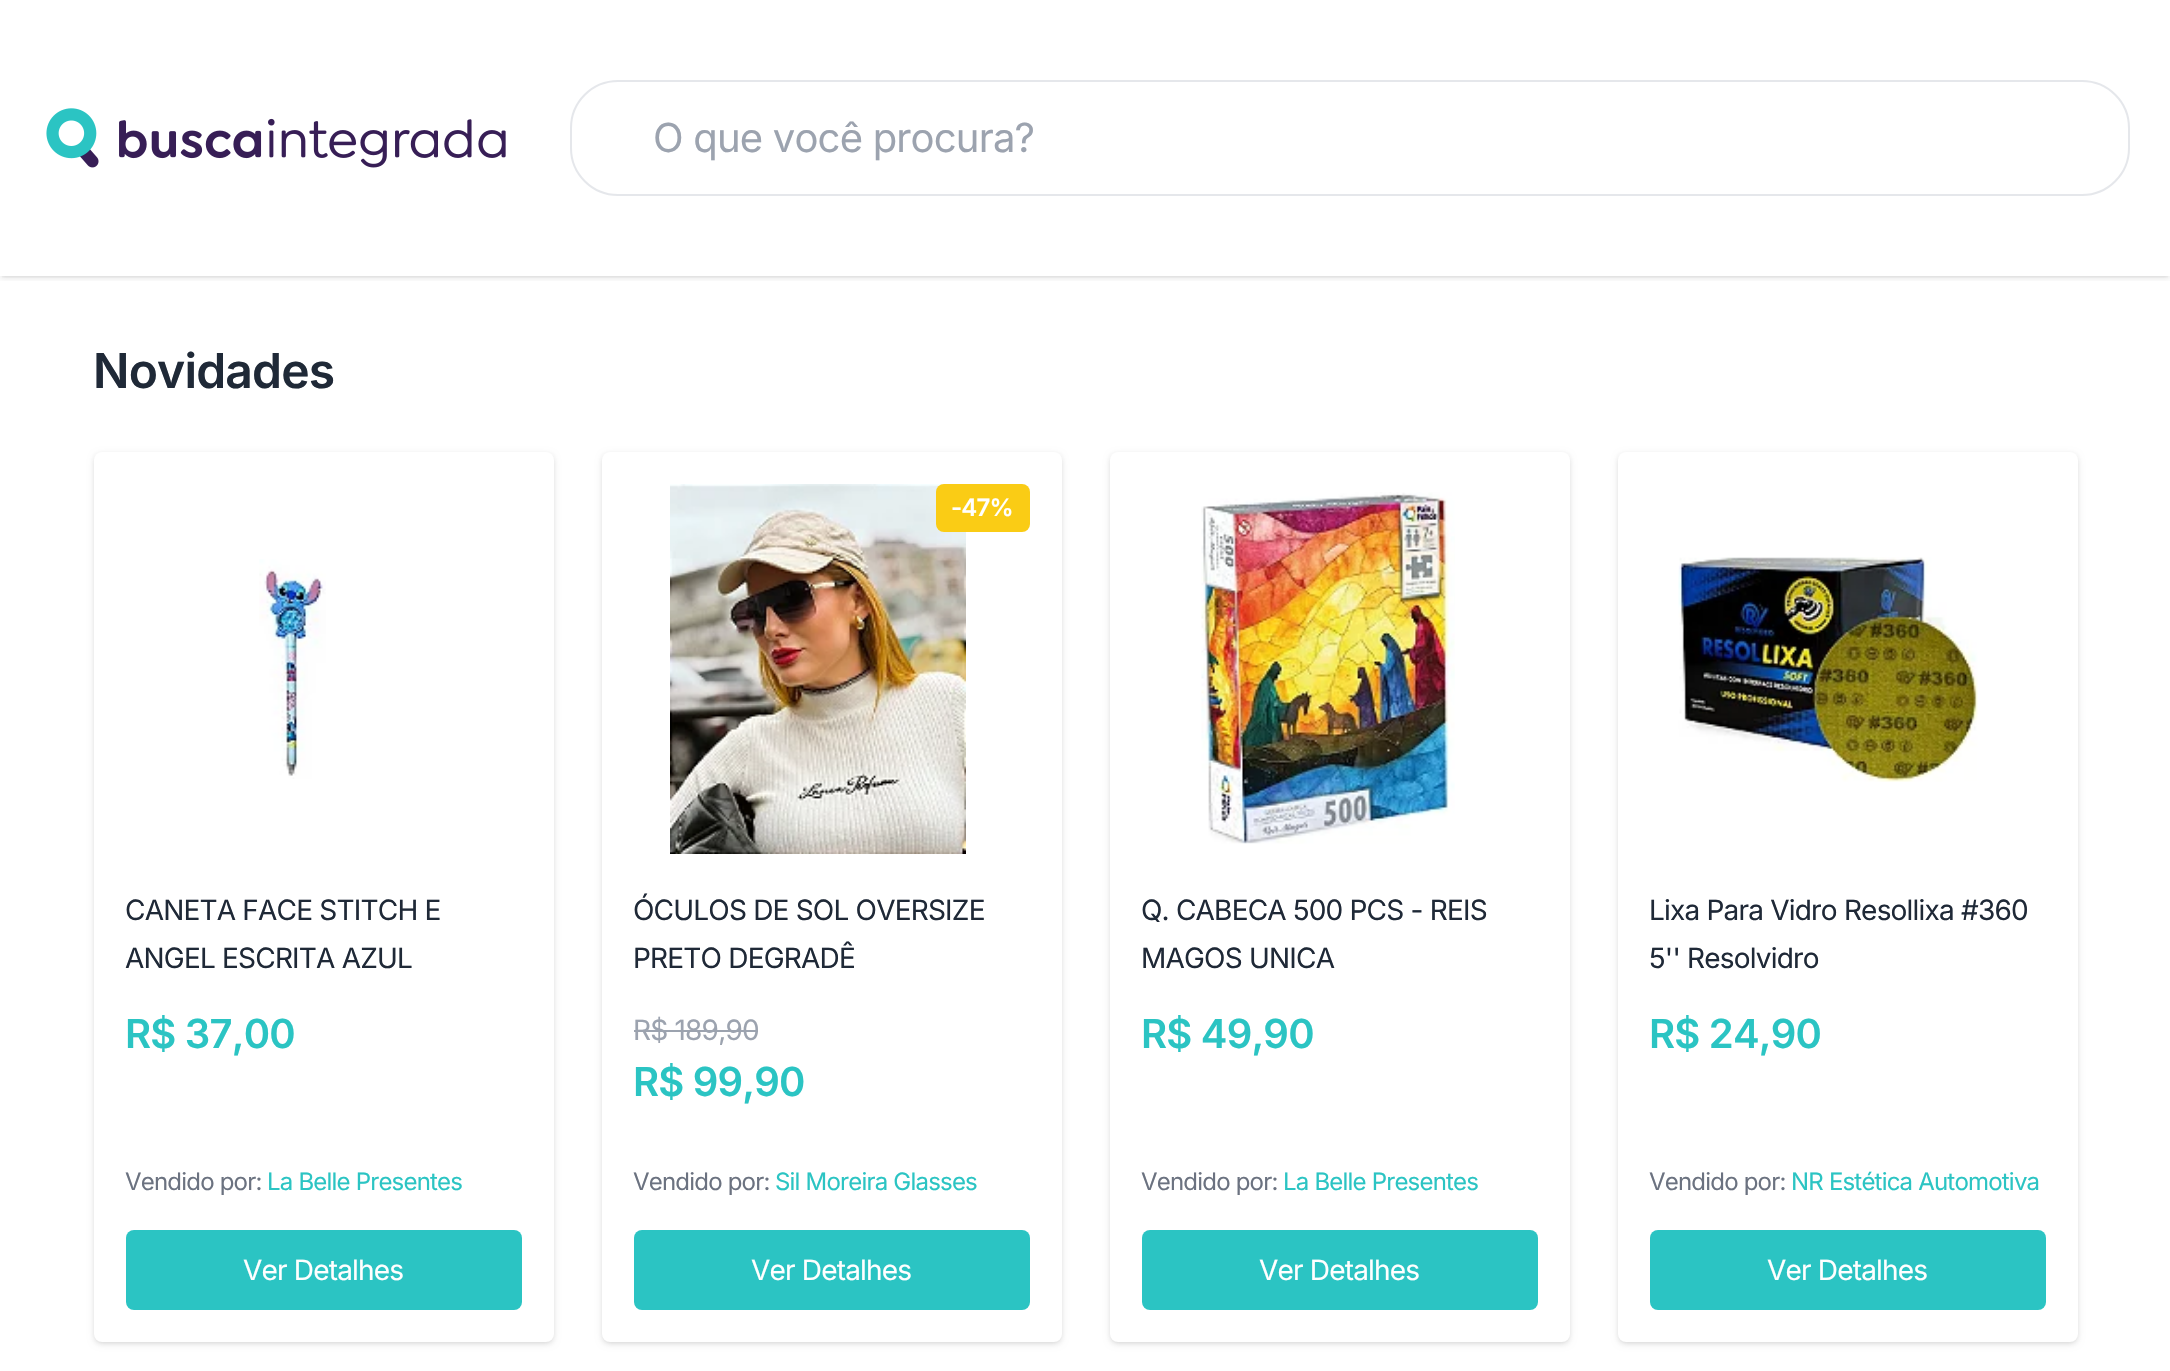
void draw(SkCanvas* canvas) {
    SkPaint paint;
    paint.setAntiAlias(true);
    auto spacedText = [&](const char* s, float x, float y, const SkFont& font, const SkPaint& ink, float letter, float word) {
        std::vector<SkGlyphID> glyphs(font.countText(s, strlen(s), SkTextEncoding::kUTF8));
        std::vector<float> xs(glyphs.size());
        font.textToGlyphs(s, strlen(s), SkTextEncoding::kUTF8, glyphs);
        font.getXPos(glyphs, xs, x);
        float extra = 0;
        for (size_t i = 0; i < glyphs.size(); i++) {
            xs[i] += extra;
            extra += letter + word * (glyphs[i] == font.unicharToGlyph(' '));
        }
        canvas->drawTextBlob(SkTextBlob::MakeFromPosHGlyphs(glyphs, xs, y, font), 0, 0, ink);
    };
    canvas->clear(0xFFFFFFFF);
    canvas->save();
    canvas->clipRect(SkRect::MakeXYWH(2, 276, 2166, 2));
    paint.setColor(0x1A000000);
    paint.setMaskFilter(SkMaskFilter::MakeBlur(kNormal_SkBlurStyle, 2));
    canvas->drawRect(SkRect::MakeXYWH(2, 4, 2166, 272), paint);
    paint.setMaskFilter(nullptr);
    canvas->restore();
    canvas->save();
    canvas->clipRect(SkRect::MakeXYWH(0, 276, 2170, 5));
    paint.setMaskFilter(SkMaskFilter::MakeBlur(kNormal_SkBlurStyle, 3));
    canvas->drawRect(SkRect::MakeXYWH(0, 2, 2170, 276), paint);
    paint.setMaskFilter(nullptr);
    canvas->restore();
    canvas->drawImageRect(SkImages::DeferredFromEncodedData(SkData::MakeFromFileName("img1.png")), SkRect::MakeXYWH(46, 108, 460, 60), SkSamplingOptions());
    paint.setStyle(SkPaint::kStroke_Style);
    paint.setStrokeWidth(2);
    paint.setColor(0xFFE5E7EB);
    canvas->drawRoundRect(SkRect::MakeXYWH(571, 81, 1558, 114), 47, 47, paint);
    SkFont font1(fontMgr->matchFamilyStyle("Inter", SkFontStyle::Normal()), 40);
    font1.setSubpixel(true);
    paint.setStyle(SkPaint::kFill_Style);
    paint.setColor(0xFF9CA3AF);
    spacedText("O que você procura?", 653, 152, font1, paint, -0.8f, 0);
    SkFont font2(fontMgr->matchFamilyStyle("Inter", SkFontStyle(600, SkFontStyle::kNormal_Width, SkFontStyle::kUpright_Slant)), 48);
    font2.setSubpixel(true);
    paint.setColor(0xFF1F2937);
    spacedText("Novidades", 93, 388, font2, paint, -0.8f, 0);
    paint.setColor(0x1A000000);
    paint.setMaskFilter(SkMaskFilter::MakeBlur(kNormal_SkBlurStyle, 2));
    canvas->drawRoundRect(SkRect::MakeXYWH(96, 456, 456, 886), 6, 6, paint);
    paint.setMaskFilter(nullptr);
    paint.setMaskFilter(SkMaskFilter::MakeBlur(kNormal_SkBlurStyle, 3));
    canvas->drawRoundRect(SkRect::MakeXYWH(94, 454, 460, 890), 8, 8, paint);
    paint.setMaskFilter(nullptr);
    paint.setColor(0xFFFFFFFF);
    canvas->drawRoundRect(SkRect::MakeXYWH(94, 452, 460, 890), 8, 8, paint);
    canvas->drawImageRect(SkImages::DeferredFromEncodedData(SkData::MakeFromFileName("img2.png")), SkRect::MakeXYWH(259, 559, 67, 220), SkSamplingOptions());
    SkFont font3(fontMgr->matchFamilyStyle("Inter", SkFontStyle::Normal()), 28);
    font3.setSubpixel(true);
    paint.setColor(0xFF1F2937);
    spacedText("CANETA FACE STITCH E", 125, 920, font3, paint, -0.8f, 0);
    spacedText("ANGEL ESCRITA AZUL", 125, 968, font3, paint, -0.8f, 0);
    SkFont font4(fontMgr->matchFamilyStyle("Inter", SkFontStyle(600, SkFontStyle::kNormal_Width, SkFontStyle::kUpright_Slant)), 40);
    font4.setSubpixel(true);
    paint.setColor(0xFF2BC4C3);
    spacedText("R$ 37,00", 125, 1048, font4, paint, -0.8f, 0);
    SkFont font5(fontMgr->matchFamilyStyle("Inter", SkFontStyle::Normal()), 24);
    font5.setSubpixel(true);
    paint.setColor(0xFF6B7280);
    spacedText("Vendido por:", 125, 1190, font5, paint, -0.8f, 0);
    paint.setColor(0xFF2BC4C3);
    spacedText("La Belle Presentes", 267, 1190, font5, paint, -0.8f, 0);
    canvas->drawRoundRect(SkRect::MakeXYWH(126, 1230, 396, 80), 8, 8, paint);
    paint.setColor(0xFFFFFFFF);
    spacedText("Ver Detalhes", 243, 1280, font3, paint, -0.8f, 0);
    paint.setColor(0x1A000000);
    paint.setMaskFilter(SkMaskFilter::MakeBlur(kNormal_SkBlurStyle, 2));
    canvas->drawRoundRect(SkRect::MakeXYWH(604, 456, 456, 886), 6, 6, paint);
    paint.setMaskFilter(nullptr);
    paint.setMaskFilter(SkMaskFilter::MakeBlur(kNormal_SkBlurStyle, 3));
    canvas->drawRoundRect(SkRect::MakeXYWH(602, 454, 460, 890), 8, 8, paint);
    paint.setMaskFilter(nullptr);
    paint.setColor(0xFFFFFFFF);
    canvas->drawRoundRect(SkRect::MakeXYWH(602, 452, 460, 890), 8, 8, paint);
    canvas->drawImageRect(SkImages::DeferredFromEncodedData(SkData::MakeFromFileName("img3.png")), SkRect::MakeXYWH(670, 484, 296, 370), SkSamplingOptions());
    paint.setColor(0xFFFACC15);
    canvas->drawRoundRect(SkRect::MakeXYWH(936, 484, 94, 48), 8, 8, paint);
    SkFont font6(fontMgr->matchFamilyStyle("Inter", SkFontStyle(600, SkFontStyle::kNormal_Width, SkFontStyle::kUpright_Slant)), 24);
    font6.setSubpixel(true);
    paint.setColor(0xFFFFFFFF);
    spacedText("-47%", 951, 516, font6, paint, -0.8f, 0);
    paint.setColor(0xFF1F2937);
    spacedText("ÓCULOS DE SOL OVERSIZE", 633, 920, font3, paint, -0.8f, 0);
    spacedText("PRETO DEGRADÊ", 633, 968, font3, paint, -0.8f, 0);
    paint.setColor(0xFF9CA3AF);
    spacedText("R$ 189,90", 633, 1040, font3, paint, -0.8f, 0);
    canvas->drawRect(SkRect::MakeXYWH(634, 1030, 124, 2), paint);
    paint.setColor(0xFF2BC4C3);
    spacedText("R$ 99,90", 633, 1096, font4, paint, -0.8f, 0);
    paint.setColor(0xFF6B7280);
    spacedText("Vendido por:", 633, 1190, font5, paint, -0.8f, 0);
    paint.setColor(0xFF2BC4C3);
    spacedText("Sil Moreira Glasses", 775, 1190, font5, paint, -0.8f, 0);
    canvas->drawRoundRect(SkRect::MakeXYWH(634, 1230, 396, 80), 8, 8, paint);
    paint.setColor(0xFFFFFFFF);
    spacedText("Ver Detalhes", 751, 1280, font3, paint, -0.8f, 0);
    paint.setColor(0x1A000000);
    paint.setMaskFilter(SkMaskFilter::MakeBlur(kNormal_SkBlurStyle, 2));
    canvas->drawRoundRect(SkRect::MakeXYWH(1112, 456, 456, 886), 6, 6, paint);
    paint.setMaskFilter(nullptr);
    paint.setMaskFilter(SkMaskFilter::MakeBlur(kNormal_SkBlurStyle, 3));
    canvas->drawRoundRect(SkRect::MakeXYWH(1110, 454, 460, 890), 8, 8, paint);
    paint.setMaskFilter(nullptr);
    paint.setColor(0xFFFFFFFF);
    canvas->drawRoundRect(SkRect::MakeXYWH(1110, 452, 460, 890), 8, 8, paint);
    canvas->drawImageRect(SkImages::DeferredFromEncodedData(SkData::MakeFromFileName("img4.png")), SkRect::MakeXYWH(1201, 492, 254, 352), SkSamplingOptions());
    paint.setColor(0xFF1F2937);
    spacedText("Q. CABECA 500 PCS - REIS", 1141, 920, font3, paint, -0.8f, 0);
    spacedText("MAGOS UNICA", 1141, 968, font3, paint, -0.8f, 0);
    paint.setColor(0xFF2BC4C3);
    spacedText("R$ 49,90", 1141, 1048, font4, paint, -0.8f, 0);
    paint.setColor(0xFF6B7280);
    spacedText("Vendido por:", 1141, 1190, font5, paint, -0.8f, 0);
    paint.setColor(0xFF2BC4C3);
    spacedText("La Belle Presentes", 1283, 1190, font5, paint, -0.8f, 0);
    canvas->drawRoundRect(SkRect::MakeXYWH(1142, 1230, 396, 80), 8, 8, paint);
    paint.setColor(0xFFFFFFFF);
    spacedText("Ver Detalhes", 1259, 1280, font3, paint, -0.8f, 0);
    paint.setColor(0x1A000000);
    paint.setMaskFilter(SkMaskFilter::MakeBlur(kNormal_SkBlurStyle, 2));
    canvas->drawRoundRect(SkRect::MakeXYWH(1620, 456, 456, 886), 6, 6, paint);
    paint.setMaskFilter(nullptr);
    paint.setMaskFilter(SkMaskFilter::MakeBlur(kNormal_SkBlurStyle, 3));
    canvas->drawRoundRect(SkRect::MakeXYWH(1618, 454, 460, 890), 8, 8, paint);
    paint.setMaskFilter(nullptr);
    paint.setColor(0xFFFFFFFF);
    canvas->drawRoundRect(SkRect::MakeXYWH(1618, 452, 460, 890), 8, 8, paint);
    canvas->drawImageRect(SkImages::DeferredFromEncodedData(SkData::MakeFromFileName("img5.png")), SkRect::MakeXYWH(1678, 557, 300, 225), SkSamplingOptions());
    paint.setColor(0xFF1F2937);
    spacedText("Lixa Para Vidro Resollixa #360", 1649, 920, font3, paint, -0.8f, 0);
    spacedText("5'' Resolvidro", 1649, 968, font3, paint, -0.8f, 0);
    paint.setColor(0xFF2BC4C3);
    spacedText("R$ 24,90", 1649, 1048, font4, paint, -0.8f, 0);
    paint.setColor(0xFF6B7280);
    spacedText("Vendido por:", 1649, 1190, font5, paint, -0.8f, 0);
    paint.setColor(0xFF2BC4C3);
    spacedText("NR Estética Automotiva", 1791, 1190, font5, paint, -0.8f, 0);
    canvas->drawRoundRect(SkRect::MakeXYWH(1650, 1230, 396, 80), 8, 8, paint);
    paint.setColor(0xFFFFFFFF);
    spacedText("Ver Detalhes", 1767, 1280, font3, paint, -0.8f, 0);
}
